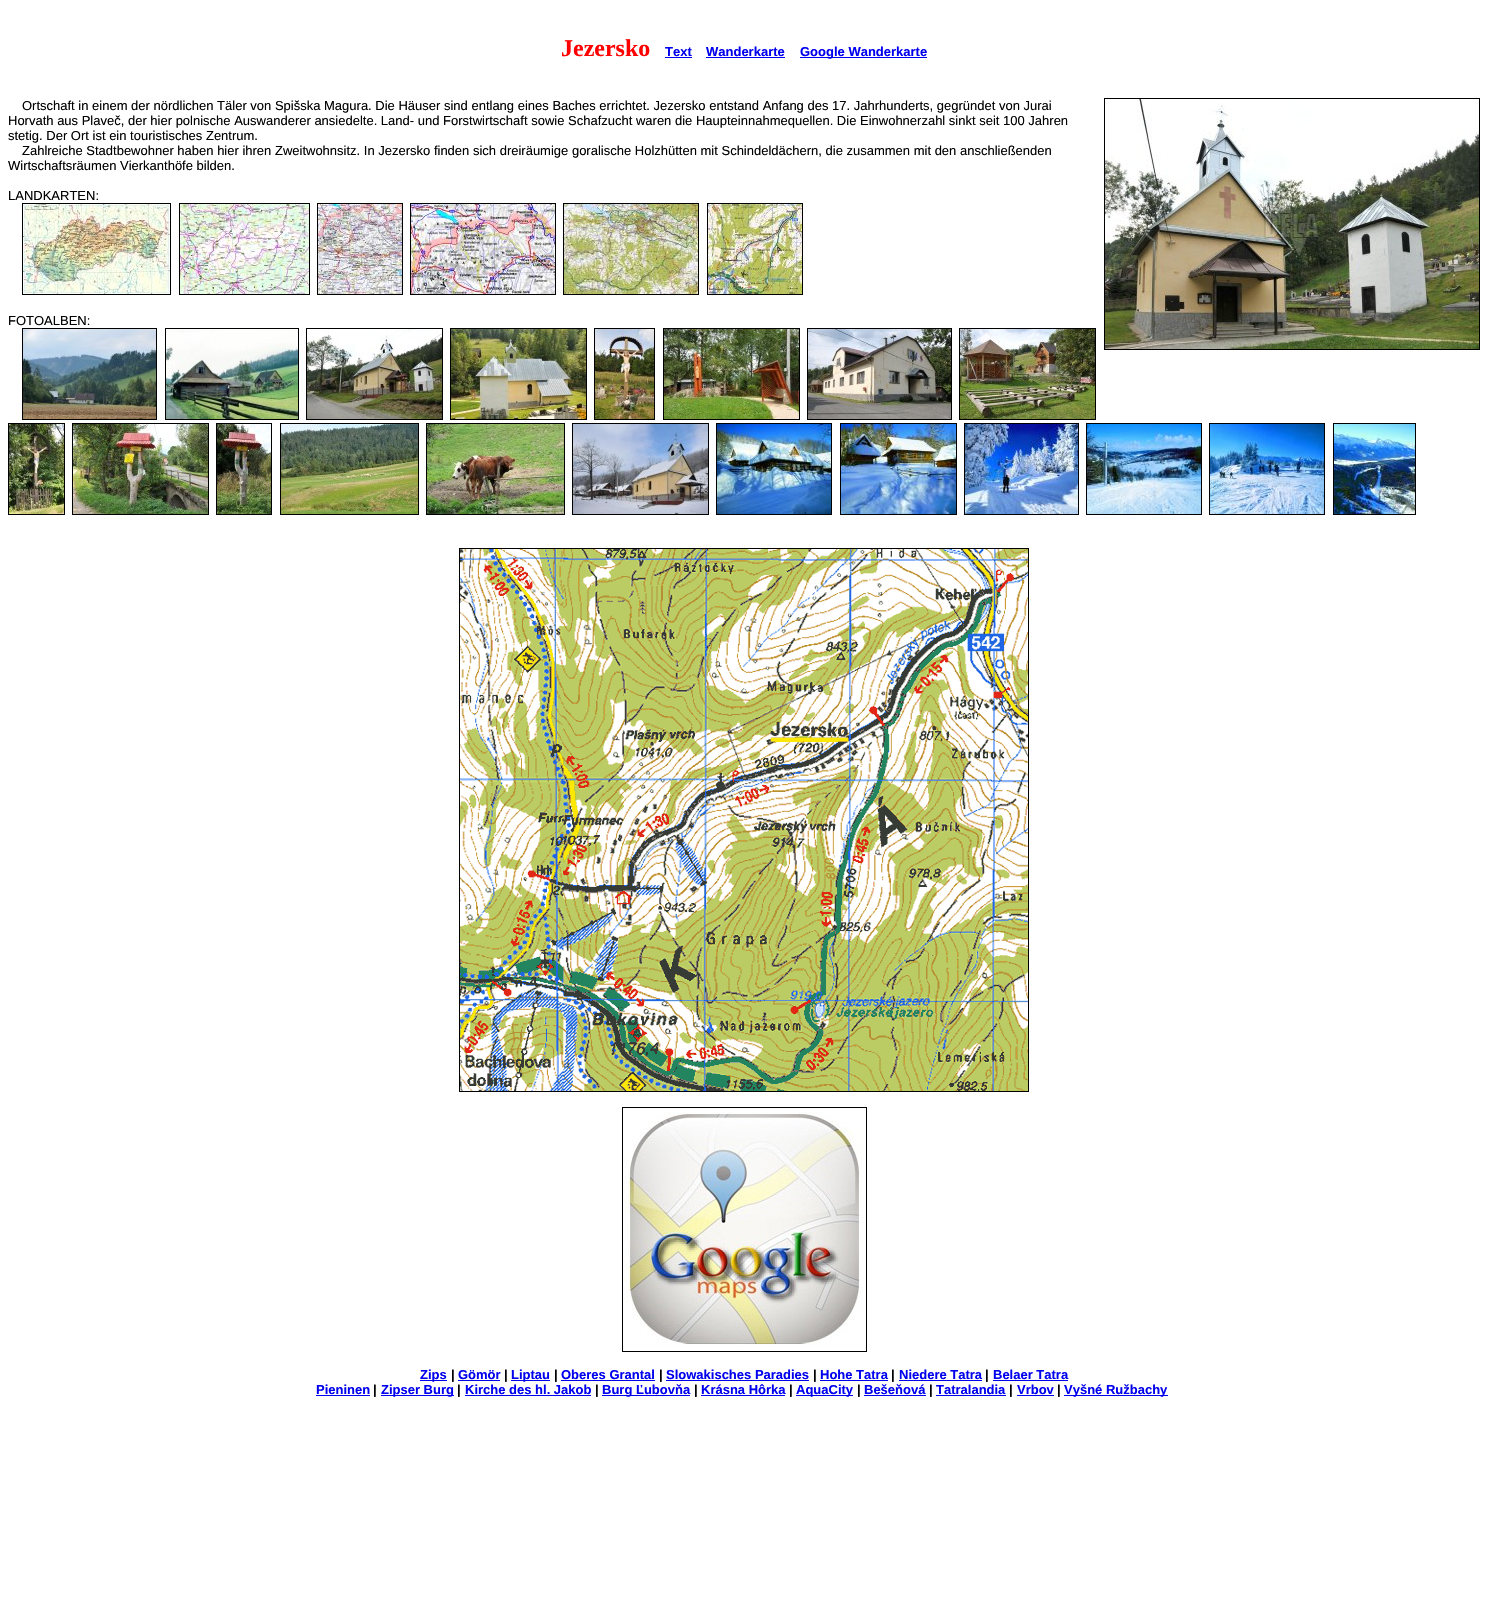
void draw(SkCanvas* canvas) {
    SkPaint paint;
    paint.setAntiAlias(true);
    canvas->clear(0xFFFFFFFF);
    SkFont font1(fontMgr->matchFamilyStyle("Liberation Serif", SkFontStyle::Bold()), 24);
    font1.setSubpixel(true);
    paint.setColor(0xFFFF0000);
    canvas->drawString("Jezersko", 561, 56, font1, paint);
    SkFont font2(fontMgr->matchFamilyStyle("Liberation Sans", SkFontStyle::Bold()), 13);
    font2.setSubpixel(true);
    paint.setColor(0xFF0000EE);
    canvas->drawString("Text", 665, 56, font2, paint);
    canvas->drawRect(SkRect::MakeXYWH(665, 57, 27, 1), paint);
    canvas->drawString("Wanderkarte", 706, 56, font2, paint);
    canvas->drawRect(SkRect::MakeXYWH(706, 57, 79, 1), paint);
    canvas->drawRect(SkRect::MakeXYWH(800, 57, 127, 1), paint);
    canvas->drawString("Google Wanderkarte", 800, 56, font2, paint);
    SkFont font3(fontMgr->matchFamilyStyle("Liberation Sans", SkFontStyle::Normal()), 13);
    font3.setSubpixel(true);
    paint.setColor(0xFF000000);
    canvas->drawString("Ortschaft in einem der nördlichen Täler von Spišska Magura. Die Häuser sind entlang eines Baches errichtet. Jezersko entstand Anfang des 17. Jahrhunderts, gegründet von Jurai", 22, 110, font3, paint);
    paint.setStyle(SkPaint::kStroke_Style);
    paint.setStrokeWidth(1);
    canvas->drawRect(SkRect::MakeXYWH(1104.5f, 98.5f, 375, 251), paint);
    canvas->drawImageRect(SkImages::DeferredFromEncodedData(SkData::MakeFromFileName("img1.png")), SkRect::MakeXYWH(1105, 99, 374, 250), SkSamplingOptions());
    paint.setStyle(SkPaint::kFill_Style);
    canvas->drawString("Horvath aus Plaveč, der hier polnische Auswanderer ansiedelte. Land- und Forstwirtschaft sowie Schafzucht waren die Haupteinnahmequellen. Die Einwohnerzahl sinkt seit 100 Jahren", 8, 125, font3, paint);
    canvas->drawString("stetig. Der Ort ist ein touristisches Zentrum.", 8, 140, font3, paint);
    canvas->drawString("Zahlreiche Stadtbewohner haben hier ihren Zweitwohnsitz. In Jezersko finden sich dreiräumige goralische Holzhütten mit Schindeldächern, die zusammen mit den anschließenden", 22, 155, font3, paint);
    canvas->drawString("Wirtschaftsräumen Vierkanthöfe bilden.", 8, 170, font3, paint);
    canvas->drawString("LANDKARTEN:", 8, 200, font3, paint);
    paint.setStyle(SkPaint::kStroke_Style);
    canvas->drawRect(SkRect::MakeXYWH(22.5f, 203.5f, 148, 91), paint);
    canvas->drawRect(SkRect::MakeXYWH(179.5f, 203.5f, 130, 91), paint);
    canvas->drawRect(SkRect::MakeXYWH(317.5f, 203.5f, 85, 91), paint);
    canvas->drawRect(SkRect::MakeXYWH(410.5f, 203.5f, 145, 91), paint);
    canvas->drawRect(SkRect::MakeXYWH(563.5f, 203.5f, 135, 91), paint);
    canvas->drawRect(SkRect::MakeXYWH(707.5f, 203.5f, 95, 91), paint);
    canvas->drawImageRect(SkImages::DeferredFromEncodedData(SkData::MakeFromFileName("img2.png")), SkRect::MakeXYWH(23, 204, 147, 90), SkSamplingOptions());
    canvas->drawImageRect(SkImages::DeferredFromEncodedData(SkData::MakeFromFileName("img3.png")), SkRect::MakeXYWH(180, 204, 129, 90), SkSamplingOptions());
    canvas->drawImageRect(SkImages::DeferredFromEncodedData(SkData::MakeFromFileName("img4.png")), SkRect::MakeXYWH(318, 204, 84, 90), SkSamplingOptions());
    canvas->drawImageRect(SkImages::DeferredFromEncodedData(SkData::MakeFromFileName("img5.png")), SkRect::MakeXYWH(411, 204, 144, 90), SkSamplingOptions());
    canvas->drawImageRect(SkImages::DeferredFromEncodedData(SkData::MakeFromFileName("img6.png")), SkRect::MakeXYWH(564, 204, 134, 90), SkSamplingOptions());
    canvas->drawImageRect(SkImages::DeferredFromEncodedData(SkData::MakeFromFileName("img7.png")), SkRect::MakeXYWH(708, 204, 94, 90), SkSamplingOptions());
    paint.setStyle(SkPaint::kFill_Style);
    canvas->drawString("FOTOALBEN:", 8, 325, font3, paint);
    paint.setStyle(SkPaint::kStroke_Style);
    canvas->drawRect(SkRect::MakeXYWH(22.5f, 328.5f, 134, 91), paint);
    canvas->drawRect(SkRect::MakeXYWH(165.5f, 328.5f, 133, 91), paint);
    canvas->drawRect(SkRect::MakeXYWH(306.5f, 328.5f, 136, 91), paint);
    canvas->drawRect(SkRect::MakeXYWH(450.5f, 328.5f, 136, 91), paint);
    canvas->drawRect(SkRect::MakeXYWH(594.5f, 328.5f, 60, 91), paint);
    canvas->drawRect(SkRect::MakeXYWH(663.5f, 328.5f, 136, 91), paint);
    canvas->drawRect(SkRect::MakeXYWH(807.5f, 328.5f, 144, 91), paint);
    canvas->drawRect(SkRect::MakeXYWH(959.5f, 328.5f, 136, 91), paint);
    canvas->drawImageRect(SkImages::DeferredFromEncodedData(SkData::MakeFromFileName("img8.png")), SkRect::MakeXYWH(23, 329, 133, 90), SkSamplingOptions());
    canvas->drawImageRect(SkImages::DeferredFromEncodedData(SkData::MakeFromFileName("img9.png")), SkRect::MakeXYWH(166, 329, 132, 90), SkSamplingOptions());
    canvas->drawImageRect(SkImages::DeferredFromEncodedData(SkData::MakeFromFileName("img10.png")), SkRect::MakeXYWH(307, 329, 135, 90), SkSamplingOptions());
    canvas->drawImageRect(SkImages::DeferredFromEncodedData(SkData::MakeFromFileName("img11.png")), SkRect::MakeXYWH(451, 329, 135, 90), SkSamplingOptions());
    canvas->drawImageRect(SkImages::DeferredFromEncodedData(SkData::MakeFromFileName("img12.png")), SkRect::MakeXYWH(595, 329, 59, 90), SkSamplingOptions());
    canvas->drawImageRect(SkImages::DeferredFromEncodedData(SkData::MakeFromFileName("img13.png")), SkRect::MakeXYWH(664, 329, 135, 90), SkSamplingOptions());
    canvas->drawImageRect(SkImages::DeferredFromEncodedData(SkData::MakeFromFileName("img14.png")), SkRect::MakeXYWH(808, 329, 143, 90), SkSamplingOptions());
    canvas->drawImageRect(SkImages::DeferredFromEncodedData(SkData::MakeFromFileName("img15.png")), SkRect::MakeXYWH(960, 329, 135, 90), SkSamplingOptions());
    canvas->drawRect(SkRect::MakeXYWH(8.5f, 423.5f, 56, 91), paint);
    canvas->drawRect(SkRect::MakeXYWH(72.5f, 423.5f, 136, 91), paint);
    canvas->drawRect(SkRect::MakeXYWH(216.5f, 423.5f, 55, 91), paint);
    canvas->drawRect(SkRect::MakeXYWH(280.5f, 423.5f, 138, 91), paint);
    canvas->drawRect(SkRect::MakeXYWH(426.5f, 423.5f, 138, 91), paint);
    canvas->drawRect(SkRect::MakeXYWH(572.5f, 423.5f, 136, 91), paint);
    canvas->drawRect(SkRect::MakeXYWH(716.5f, 423.5f, 115, 91), paint);
    canvas->drawRect(SkRect::MakeXYWH(840.5f, 423.5f, 116, 91), paint);
    canvas->drawRect(SkRect::MakeXYWH(964.5f, 423.5f, 114, 91), paint);
    canvas->drawRect(SkRect::MakeXYWH(1086.5f, 423.5f, 115, 91), paint);
    canvas->drawRect(SkRect::MakeXYWH(1209.5f, 423.5f, 115, 91), paint);
    canvas->drawRect(SkRect::MakeXYWH(1333.5f, 423.5f, 82, 91), paint);
    canvas->drawImageRect(SkImages::DeferredFromEncodedData(SkData::MakeFromFileName("img16.png")), SkRect::MakeXYWH(9, 424, 55, 90), SkSamplingOptions());
    canvas->drawImageRect(SkImages::DeferredFromEncodedData(SkData::MakeFromFileName("img17.png")), SkRect::MakeXYWH(73, 424, 135, 90), SkSamplingOptions());
    canvas->drawImageRect(SkImages::DeferredFromEncodedData(SkData::MakeFromFileName("img18.png")), SkRect::MakeXYWH(217, 424, 54, 90), SkSamplingOptions());
    canvas->drawImageRect(SkImages::DeferredFromEncodedData(SkData::MakeFromFileName("img19.png")), SkRect::MakeXYWH(281, 424, 137, 90), SkSamplingOptions());
    canvas->drawImageRect(SkImages::DeferredFromEncodedData(SkData::MakeFromFileName("img20.png")), SkRect::MakeXYWH(427, 424, 137, 90), SkSamplingOptions());
    canvas->drawImageRect(SkImages::DeferredFromEncodedData(SkData::MakeFromFileName("img21.png")), SkRect::MakeXYWH(573, 424, 135, 90), SkSamplingOptions());
    canvas->drawImageRect(SkImages::DeferredFromEncodedData(SkData::MakeFromFileName("img22.png")), SkRect::MakeXYWH(717, 424, 114, 90), SkSamplingOptions());
    canvas->drawImageRect(SkImages::DeferredFromEncodedData(SkData::MakeFromFileName("img23.png")), SkRect::MakeXYWH(841, 424, 115, 90), SkSamplingOptions());
    canvas->drawImageRect(SkImages::DeferredFromEncodedData(SkData::MakeFromFileName("img24.png")), SkRect::MakeXYWH(965, 424, 113, 90), SkSamplingOptions());
    canvas->drawImageRect(SkImages::DeferredFromEncodedData(SkData::MakeFromFileName("img25.png")), SkRect::MakeXYWH(1087, 424, 114, 90), SkSamplingOptions());
    canvas->drawImageRect(SkImages::DeferredFromEncodedData(SkData::MakeFromFileName("img26.png")), SkRect::MakeXYWH(1210, 424, 114, 90), SkSamplingOptions());
    canvas->drawImageRect(SkImages::DeferredFromEncodedData(SkData::MakeFromFileName("img27.png")), SkRect::MakeXYWH(1334, 424, 81, 90), SkSamplingOptions());
    canvas->drawRect(SkRect::MakeXYWH(459.5f, 548.5f, 569, 543), paint);
    canvas->drawImageRect(SkImages::DeferredFromEncodedData(SkData::MakeFromFileName("img28.png")), SkRect::MakeXYWH(460, 549, 568, 542), SkSamplingOptions());
    canvas->drawRect(SkRect::MakeXYWH(622.5f, 1107.5f, 244, 244), paint);
    canvas->drawImageRect(SkImages::DeferredFromEncodedData(SkData::MakeFromFileName("img29.png")), SkRect::MakeXYWH(623, 1112, 240, 236), SkSamplingOptions());
    paint.setStyle(SkPaint::kFill_Style);
    paint.setColor(0xFF0000EE);
    canvas->drawRect(SkRect::MakeXYWH(420, 1380, 27, 1), paint);
    canvas->drawString("Zips", 420, 1379, font2, paint);
    paint.setColor(0xFF000000);
    canvas->drawString("|", 451, 1379, font2, paint);
    paint.setColor(0xFF0000EE);
    canvas->drawString("Gömör", 458, 1379, font2, paint);
    canvas->drawRect(SkRect::MakeXYWH(458, 1380, 42, 1), paint);
    paint.setColor(0xFF000000);
    canvas->drawString("|", 504, 1379, font2, paint);
    paint.setColor(0xFF0000EE);
    canvas->drawRect(SkRect::MakeXYWH(511, 1380, 39, 1), paint);
    canvas->drawString("Liptau", 511, 1379, font2, paint);
    paint.setColor(0xFF000000);
    canvas->drawString("|", 554, 1379, font2, paint);
    paint.setColor(0xFF0000EE);
    canvas->drawString("Oberes Grantal", 561, 1379, font2, paint);
    canvas->drawRect(SkRect::MakeXYWH(561, 1380, 94, 1), paint);
    paint.setColor(0xFF000000);
    canvas->drawString("|", 659, 1379, font2, paint);
    paint.setColor(0xFF0000EE);
    canvas->drawString("Slowakisches Paradies", 666, 1379, font2, paint);
    canvas->drawRect(SkRect::MakeXYWH(666, 1380, 143, 1), paint);
    paint.setColor(0xFF000000);
    canvas->drawString("|", 813, 1379, font2, paint);
    paint.setColor(0xFF0000EE);
    canvas->drawString("Hohe Tatra", 820, 1379, font2, paint);
    canvas->drawRect(SkRect::MakeXYWH(820, 1380, 68, 1), paint);
    paint.setColor(0xFF000000);
    canvas->drawString("|", 891, 1379, font2, paint);
    paint.setColor(0xFF0000EE);
    canvas->drawString("Niedere Tatra", 899, 1379, font2, paint);
    canvas->drawRect(SkRect::MakeXYWH(899, 1380, 83, 1), paint);
    paint.setColor(0xFF000000);
    canvas->drawString("|", 985, 1379, font2, paint);
    paint.setColor(0xFF0000EE);
    canvas->drawString("Belaer Tatra", 993, 1379, font2, paint);
    canvas->drawRect(SkRect::MakeXYWH(993, 1380, 75, 1), paint);
    canvas->drawString("Pieninen", 316, 1394, font2, paint);
    canvas->drawRect(SkRect::MakeXYWH(316, 1395, 54, 1), paint);
    paint.setColor(0xFF000000);
    canvas->drawString("|", 373, 1394, font2, paint);
    paint.setColor(0xFF0000EE);
    canvas->drawRect(SkRect::MakeXYWH(381, 1395, 73, 1), paint);
    canvas->drawString("Zipser Burg", 381, 1394, font2, paint);
    paint.setColor(0xFF000000);
    canvas->drawString("|", 457, 1394, font2, paint);
    paint.setColor(0xFF0000EE);
    canvas->drawString("Kirche des hl. Jakob", 465, 1394, font2, paint);
    canvas->drawRect(SkRect::MakeXYWH(465, 1395, 126, 1), paint);
    paint.setColor(0xFF000000);
    canvas->drawString("|", 595, 1394, font2, paint);
    paint.setColor(0xFF0000EE);
    canvas->drawRect(SkRect::MakeXYWH(602, 1395, 88, 1), paint);
    canvas->drawString("Burg Ľubovňa", 602, 1394, font2, paint);
    paint.setColor(0xFF000000);
    canvas->drawString("|", 694, 1394, font2, paint);
    paint.setColor(0xFF0000EE);
    canvas->drawString("Krásna Hôrka", 701, 1394, font2, paint);
    canvas->drawRect(SkRect::MakeXYWH(701, 1395, 84, 1), paint);
    paint.setColor(0xFF000000);
    canvas->drawString("|", 789, 1394, font2, paint);
    paint.setColor(0xFF0000EE);
    canvas->drawRect(SkRect::MakeXYWH(796, 1395, 57, 1), paint);
    canvas->drawString("AquaCity", 796, 1394, font2, paint);
    paint.setColor(0xFF000000);
    canvas->drawString("|", 857, 1394, font2, paint);
    paint.setColor(0xFF0000EE);
    canvas->drawString("Bešeňová", 864, 1394, font2, paint);
    canvas->drawRect(SkRect::MakeXYWH(864, 1395, 62, 1), paint);
    paint.setColor(0xFF000000);
    canvas->drawString("|", 929, 1394, font2, paint);
    paint.setColor(0xFF0000EE);
    canvas->drawString("Tatralandia", 936, 1394, font2, paint);
    canvas->drawRect(SkRect::MakeXYWH(936, 1395, 70, 1), paint);
    paint.setColor(0xFF000000);
    canvas->drawString("|", 1009, 1394, font2, paint);
    paint.setColor(0xFF0000EE);
    canvas->drawString("Vrbov", 1017, 1394, font2, paint);
    canvas->drawRect(SkRect::MakeXYWH(1017, 1395, 37, 1), paint);
    paint.setColor(0xFF000000);
    canvas->drawString("|", 1057, 1394, font2, paint);
    paint.setColor(0xFF0000EE);
    canvas->drawRect(SkRect::MakeXYWH(1064, 1395, 104, 1), paint);
    canvas->drawString("Vyšné Ružbachy", 1064, 1394, font2, paint);
}
